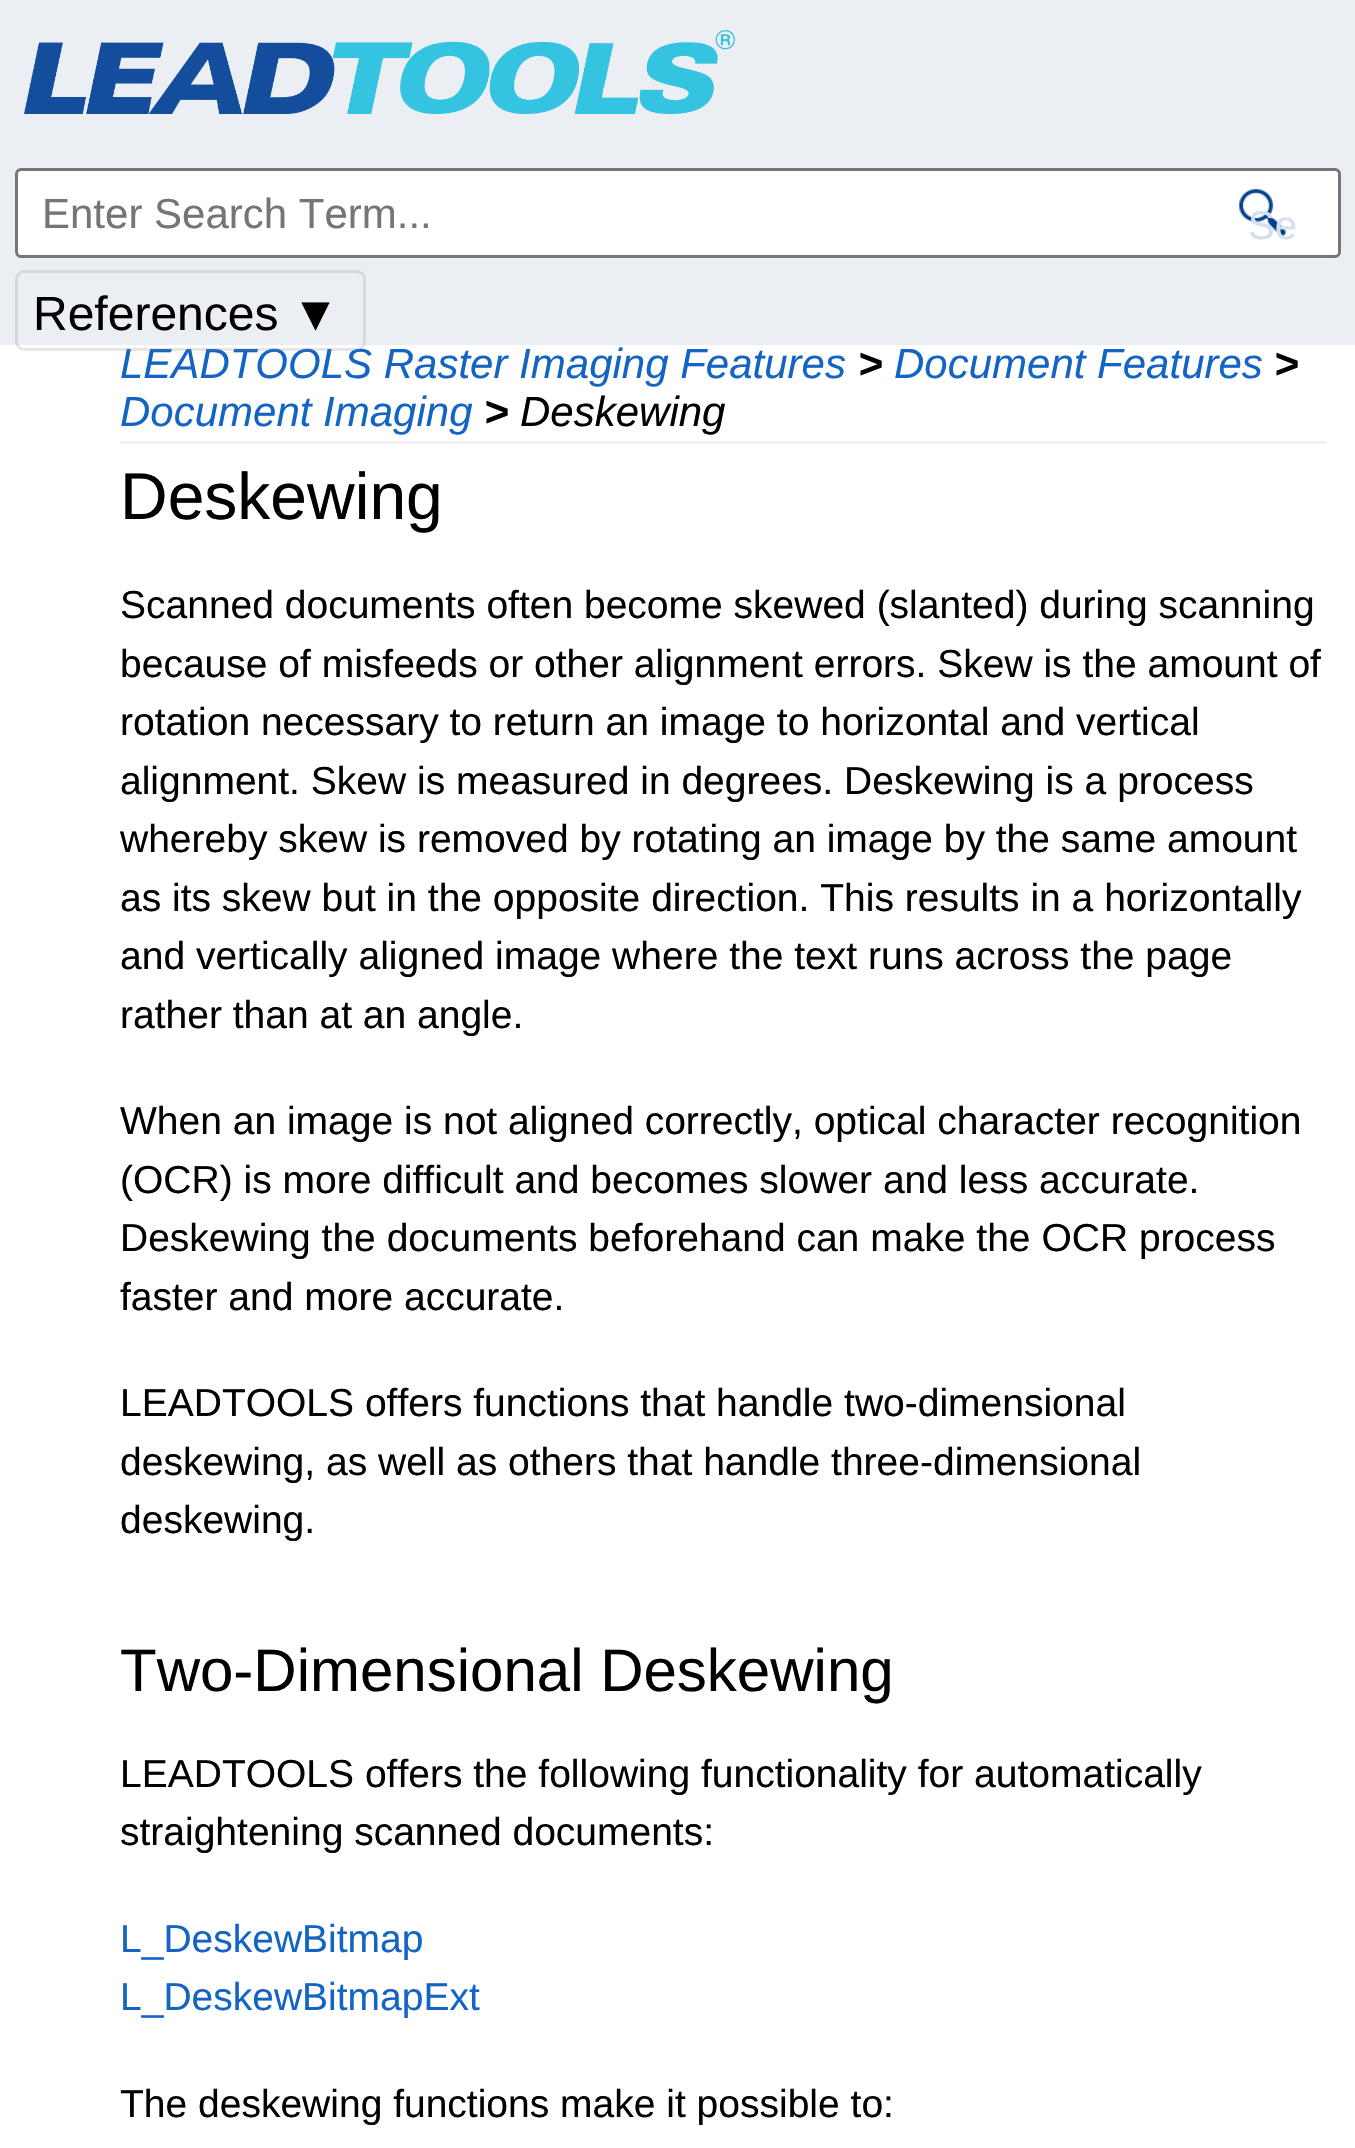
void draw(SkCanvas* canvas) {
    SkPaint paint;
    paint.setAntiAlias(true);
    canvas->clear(0xFFFFFFFF);
    paint.setColor(0xFFEBEEF3);
    canvas->drawRect(SkRect::MakeXYWH(0, 0, 1355, 345), paint);
    canvas->drawImageRect(SkImages::DeferredFromEncodedData(SkData::MakeFromFileName("img1.png")), SkRect::MakeXYWH(24, 30, 711, 84), SkSamplingOptions());
    paint.setColor(0xFFFFFFFF);
    canvas->drawRoundRect(SkRect::MakeXYWH(16.5f, 169.5f, 1323, 87), 4.5f, 4.5f, paint);
    paint.setStyle(SkPaint::kStroke_Style);
    paint.setStrokeWidth(3);
    paint.setColor(0xFF767676);
    canvas->drawRoundRect(SkRect::MakeXYWH(16.5f, 169.5f, 1323, 87), 4.5f, 4.5f, paint);
    SkFont font1(fontMgr->matchFamilyStyle("Liberation Sans", SkFontStyle::Normal()), 42);
    font1.setSubpixel(true);
    paint.setStyle(SkPaint::kFill_Style);
    paint.setColor(0xFF757575);
    canvas->drawString("Enter Search Term...", 42, 228, font1, paint);
    canvas->drawImageRect(SkImages::DeferredFromEncodedData(SkData::MakeFromFileName("img2.png")), SkRect::MakeXYWH(1239, 189, 47, 47), SkSamplingOptions());
    SkFont font2(fontMgr->matchFamilyStyle("Liberation Sans", SkFontStyle::Normal()), 40);
    font2.setSubpixel(true);
    paint.setColor(0xFFD5E0EC);
    canvas->drawString("Se", 1248, 239, font2, paint);
    SkFont font3(fontMgr->matchFamilyStyle("Liberation Sans", SkFontStyle::Italic()), 42);
    font3.setSubpixel(true);
    paint.setColor(0xFF1364C4);
    canvas->drawString("LEADTOOLS Raster Imaging Features", 120, 378, font3, paint);
    paint.setStyle(SkPaint::kStroke_Style);
    paint.setColor(0x33808080);
    canvas->drawRoundRect(SkRect::MakeXYWH(16.5f, 271.5f, 348, 78), 7.5f, 7.5f, paint);
    SkFont font4(fontMgr->matchFamilyStyle("Liberation Sans", SkFontStyle::Normal()), 48);
    font4.setSubpixel(true);
    paint.setStyle(SkPaint::kFill_Style);
    paint.setColor(0xFF000000);
    canvas->drawString("References ▼", 33, 330, font4, paint);
    paint.setColor(0xFFF1F1F1);
    canvas->drawRect(SkRect::MakeXYWH(120, 441, 1206, 3), paint);
    SkFont font5(fontMgr->matchFamilyStyle("Liberation Sans", SkFontStyle::BoldItalic()), 42);
    font5.setSubpixel(true);
    paint.setColor(0xFF000000);
    canvas->drawString(">", 858, 378, font5, paint);
    paint.setColor(0xFF1364C4);
    canvas->drawString("Document Features", 894, 378, font3, paint);
    paint.setColor(0xFF000000);
    canvas->drawString(">", 1274, 378, font5, paint);
    paint.setColor(0xFF1364C4);
    canvas->drawString("Document Imaging", 120, 426, font3, paint);
    paint.setColor(0xFF000000);
    canvas->drawString(">", 484, 426, font5, paint);
    canvas->drawString("Deskewing", 520, 426, font3, paint);
    SkFont font6(fontMgr->matchFamilyStyle("Liberation Sans", SkFontStyle::Normal()), 66);
    font6.setSubpixel(true);
    canvas->drawString("Deskewing", 120, 519, font6, paint);
    SkFont font7(fontMgr->matchFamilyStyle("Liberation Sans", SkFontStyle::Normal()), 39);
    font7.setSubpixel(true);
    canvas->drawString("Scanned documents often become skewed (slanted) during scanning", 120, 618, font7, paint);
    canvas->drawString("because of misfeeds or other alignment errors. Skew is the amount of", 120, 677, font7, paint);
    canvas->drawString("rotation necessary to return an image to horizontal and vertical", 120, 735, font7, paint);
    canvas->drawString("alignment. Skew is measured in degrees. Deskewing is a process", 120, 794, font7, paint);
    canvas->drawString("whereby skew is removed by rotating an image by the same amount", 120, 852, font7, paint);
    canvas->drawString("as its skew but in the opposite direction. This results in a horizontally", 120, 911, font7, paint);
    canvas->drawString("and vertically aligned image where the text runs across the page", 120, 969, font7, paint);
    canvas->drawString("rather than at an angle.", 120, 1028, font7, paint);
    canvas->drawString("When an image is not aligned correctly, optical character recognition", 120, 1134, font7, paint);
    canvas->drawString("(OCR) is more difficult and becomes slower and less accurate.", 120, 1193, font7, paint);
    canvas->drawString("Deskewing the documents beforehand can make the OCR process", 120, 1251, font7, paint);
    canvas->drawString("faster and more accurate.", 120, 1310, font7, paint);
    canvas->drawString("LEADTOOLS offers functions that handle two-dimensional", 120, 1416, font7, paint);
    canvas->drawString("deskewing, as well as others that handle three-dimensional", 120, 1475, font7, paint);
    canvas->drawString("deskewing.", 120, 1533, font7, paint);
    SkFont font8(fontMgr->matchFamilyStyle("Liberation Sans", SkFontStyle::Normal()), 60);
    font8.setSubpixel(true);
    canvas->drawString("Two-Dimensional Deskewing", 120, 1691, font8, paint);
    canvas->drawString("LEADTOOLS offers the following functionality for automatically", 120, 1787, font7, paint);
    canvas->drawString("straightening scanned documents:", 120, 1845, font7, paint);
    paint.setColor(0xFF1364C4);
    canvas->drawString("L_DeskewBitmap", 120, 1952, font7, paint);
    canvas->drawString("L_DeskewBitmapExt", 120, 2010, font7, paint);
    paint.setColor(0xFF000000);
    canvas->drawString("The deskewing functions make it possible to:", 120, 2117, font7, paint);
}
